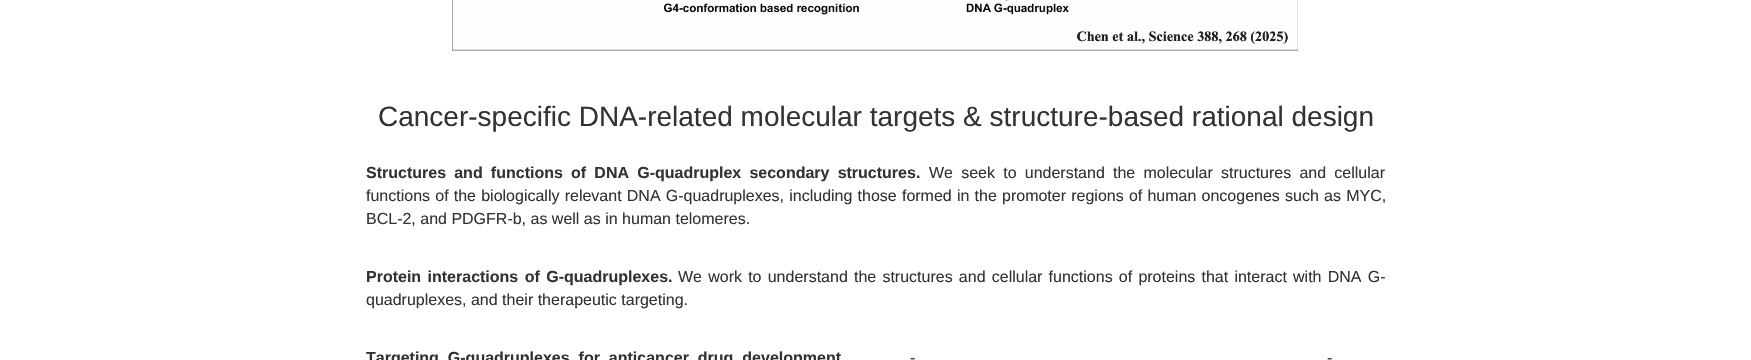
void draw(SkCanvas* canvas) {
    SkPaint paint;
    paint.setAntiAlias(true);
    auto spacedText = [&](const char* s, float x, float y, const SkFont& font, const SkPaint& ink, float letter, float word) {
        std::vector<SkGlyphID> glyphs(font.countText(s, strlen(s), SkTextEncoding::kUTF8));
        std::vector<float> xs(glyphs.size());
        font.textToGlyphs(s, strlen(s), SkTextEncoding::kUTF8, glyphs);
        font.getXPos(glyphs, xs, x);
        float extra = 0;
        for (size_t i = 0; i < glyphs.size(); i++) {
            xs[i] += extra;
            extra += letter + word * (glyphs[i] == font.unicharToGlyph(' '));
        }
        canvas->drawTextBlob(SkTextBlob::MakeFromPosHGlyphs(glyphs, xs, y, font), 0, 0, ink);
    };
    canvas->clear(0xFFFFFFFF);
    canvas->drawImageRect(SkImages::DeferredFromEncodedData(SkData::MakeFromFileName("img1.png")), SkRect::MakeXYWH(452, 0, 846, 51), SkSamplingOptions());
    SkFont font1(fontMgr->matchFamilyStyle("Liberation Sans", SkFontStyle::Normal()), 28);
    font1.setSubpixel(true);
    paint.setColor(0xFF333333);
    canvas->drawString("Cancer-specific DNA-related molecular targets & structure-based rational design", 378, 126, font1, paint);
    SkFont font2(fontMgr->matchFamilyStyle("Liberation Sans", SkFontStyle::Bold()), 16);
    font2.setSubpixel(true);
    spacedText("Structures and functions of DNA G-quadruplex secondary structures.", 366, 178, font2, paint, 0, 3.75f);
    SkFont font3(fontMgr->matchFamilyStyle("Liberation Sans", SkFontStyle::Normal()), 16);
    font3.setSubpixel(true);
    spacedText("We seek to understand the molecular structures and cellular", 929, 178, font3, paint, 0, 3.75f);
    spacedText("functions of the biologically relevant DNA G-quadruplexes, including those formed in the promoter regions of human oncogenes such as MYC,", 366, 201, font3, paint, 0, 0.75f);
    canvas->drawString("BCL-2, and PDGFR-b, as well as in human telomeres.", 366, 224, font3, paint);
    spacedText("Protein interactions of G-quadruplexes.", 366, 282, font2, paint, 0, 2);
    spacedText("We work to understand the structures and cellular functions of proteins that interact with DNA G-", 678, 282, font3, paint, 0, 1.75f);
    canvas->drawString("quadruplexes, and their therapeutic targeting.", 366, 305, font3, paint);
    spacedText("Targeting G-quadruplexes for anticancer drug development", 366, 363, font2, paint, 0, 4.5f);
    spacedText("-", 910, 363, font3, paint, 0, 4.5f);
    spacedText("-", 1327, 363, font3, paint, 0, 4.5f);
}
